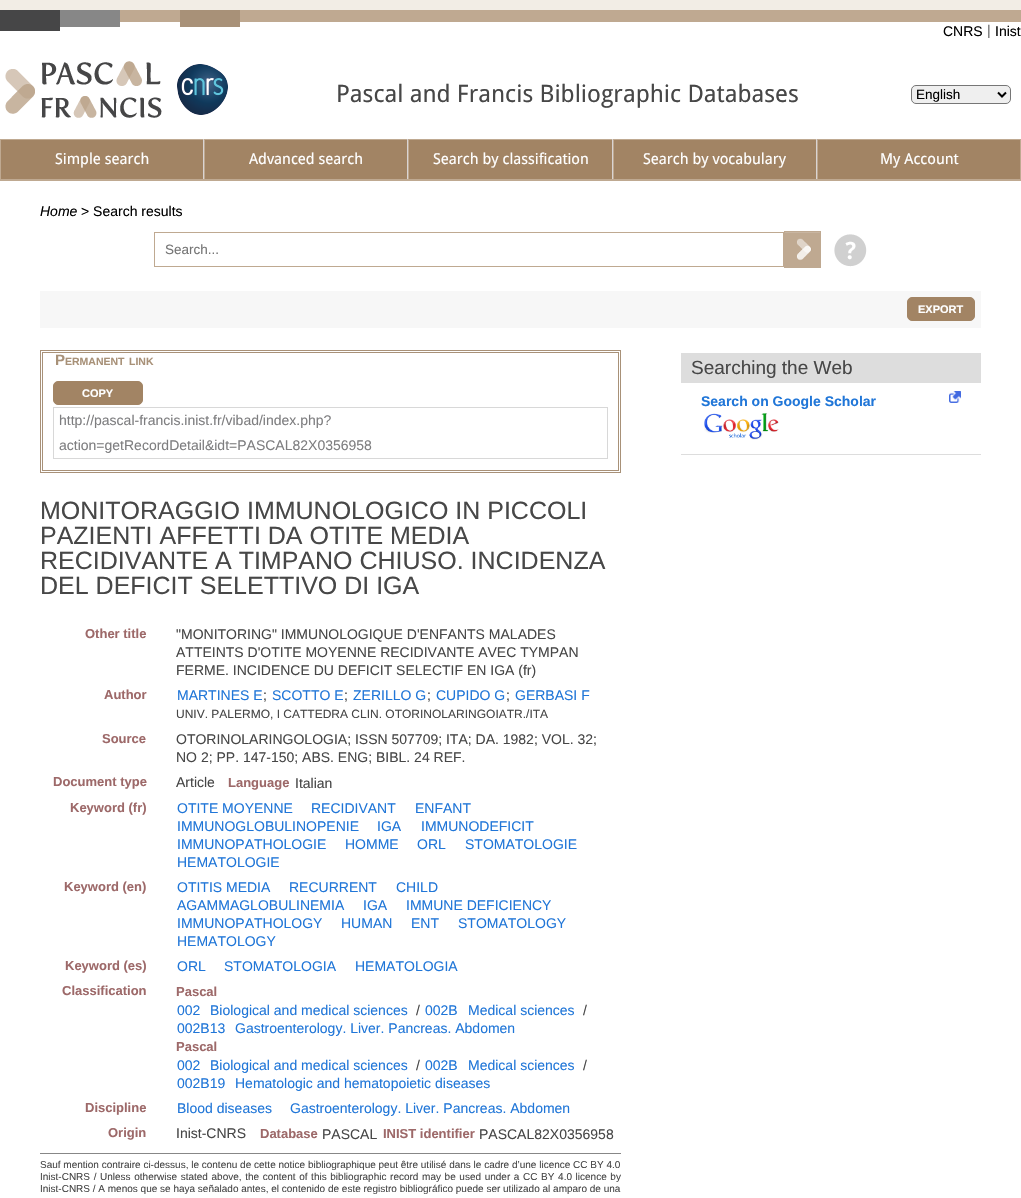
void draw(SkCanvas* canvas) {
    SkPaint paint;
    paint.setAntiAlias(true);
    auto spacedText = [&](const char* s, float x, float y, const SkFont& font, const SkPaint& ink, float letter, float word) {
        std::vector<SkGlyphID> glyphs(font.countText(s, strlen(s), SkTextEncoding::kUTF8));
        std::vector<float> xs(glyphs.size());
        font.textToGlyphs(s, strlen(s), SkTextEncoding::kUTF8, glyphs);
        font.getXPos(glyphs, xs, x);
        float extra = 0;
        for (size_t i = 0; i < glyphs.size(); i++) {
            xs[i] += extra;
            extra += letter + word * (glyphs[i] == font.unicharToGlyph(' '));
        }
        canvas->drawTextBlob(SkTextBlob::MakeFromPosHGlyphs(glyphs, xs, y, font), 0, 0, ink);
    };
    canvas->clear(0xFFF2EDE5);
    paint.setColor(0xFFFFFFFF);
    canvas->drawRect(SkRect::MakeXYWH(0, 22, 1021, 117), paint);
    paint.setColor(0xFFBFA991);
    canvas->drawRect(SkRect::MakeXYWH(240, 10, 781, 12), paint);
    canvas->drawRect(SkRect::MakeXYWH(0, 179, 1021, 2), paint);
    canvas->drawImageRect(SkImages::DeferredFromEncodedData(SkData::MakeFromFileName("img1.png")), SkRect::MakeXYWH(0, 10, 240, 21), SkSamplingOptions());
    SkFont font1(fontMgr->matchFamilyStyle("Liberation Sans", SkFontStyle::Normal()), 14);
    font1.setSubpixel(true);
    paint.setColor(0xFF000000);
    canvas->drawString("CNRS", 943, 36, font1, paint);
    paint.setColor(0xFF696969);
    canvas->drawString("|", 987, 35, font1, paint);
    paint.setColor(0xFF000000);
    canvas->drawString("Inist", 995, 36, font1, paint);
    canvas->drawImageRect(SkImages::DeferredFromEncodedData(SkData::MakeFromFileName("img2.png")), SkRect::MakeXYWH(5, 61, 157, 57), SkSamplingOptions());
    canvas->drawImageRect(SkImages::DeferredFromEncodedData(SkData::MakeFromFileName("img3.png")), SkRect::MakeXYWH(177, 64, 51, 51), SkSamplingOptions());
    SkFont font2(fontMgr->matchFamilyStyle("Droid Sans", SkFontStyle::Normal()), 24);
    font2.setSubpixel(true);
    paint.setColor(0xFF474747);
    canvas->drawString("Pascal and Francis Bibliographic Databases", 336, 102, font2, paint);
    paint.setColor(0xFFEFEFEF);
    canvas->drawRoundRect(SkRect::MakeXYWH(911.5f, 85.5f, 99, 18), 4.5f, 4.5f, paint);
    paint.setStyle(SkPaint::kStroke_Style);
    paint.setStrokeWidth(1);
    paint.setColor(0xFF767676);
    canvas->drawRoundRect(SkRect::MakeXYWH(911.5f, 85.5f, 99, 18), 4.5f, 4.5f, paint);
    paint.setStrokeWidth(2);
    paint.setColor(0xFF000000);
    canvas->drawPath(SkPathBuilder().moveTo(998, 92.5f).lineTo(1002, 96.5f).lineTo(1006, 92.5f).detach(), paint);
    SkFont font3(fontMgr->matchFamilyStyle("Liberation Sans", SkFontStyle::Normal()), 13.5f);
    font3.setSubpixel(true);
    paint.setStyle(SkPaint::kFill_Style);
    canvas->drawString("English", 916, 99, font3, paint);
    paint.setColor(0xFFA28464);
    canvas->drawRect(SkRect::MakeXYWH(1, 140, 1019, 39), paint);
    paint.setColor(0xFFBFA991);
    canvas->drawRect(SkRect::MakeXYWH(0, 139, 1021, 1), paint);
    paint.setColor(0xFFD9D4D3);
    canvas->drawRect(SkRect::MakeXYWH(203, 139, 1, 40), paint);
    paint.setColor(0xFFBFA991);
    canvas->drawRect(SkRect::MakeXYWH(0, 139, 1, 40), paint);
    SkFont font4(fontMgr->matchFamilyStyle("Droid Sans", SkFontStyle::Normal()), 15);
    font4.setSubpixel(true);
    paint.setColor(0xFFFFFFFF);
    canvas->drawString("Simple search", 55, 164, font4, paint);
    paint.setColor(0xFFD9D4D3);
    canvas->drawRect(SkRect::MakeXYWH(407, 139, 1, 40), paint);
    paint.setColor(0xFFBFA991);
    canvas->drawRect(SkRect::MakeXYWH(204, 139, 1, 40), paint);
    paint.setColor(0xFFFFFFFF);
    canvas->drawString("Advanced search", 249, 164, font4, paint);
    paint.setColor(0xFFD9D4D3);
    canvas->drawRect(SkRect::MakeXYWH(612, 139, 1, 40), paint);
    paint.setColor(0xFFBFA991);
    canvas->drawRect(SkRect::MakeXYWH(408, 139, 1, 40), paint);
    paint.setColor(0xFFFFFFFF);
    canvas->drawString("Search by classification", 433, 164, font4, paint);
    paint.setColor(0xFFD9D4D3);
    canvas->drawRect(SkRect::MakeXYWH(816, 139, 1, 40), paint);
    paint.setColor(0xFFBFA991);
    canvas->drawRect(SkRect::MakeXYWH(613, 139, 1, 40), paint);
    paint.setColor(0xFFFFFFFF);
    canvas->drawString("Search by vocabulary", 643, 164, font4, paint);
    paint.setColor(0xFFBFA991);
    canvas->drawRect(SkRect::MakeXYWH(1020, 139, 1, 40), paint);
    canvas->drawRect(SkRect::MakeXYWH(817, 139, 1, 40), paint);
    paint.setColor(0xFFFFFFFF);
    canvas->drawString("My Account", 880, 164, font4, paint);
    canvas->drawRect(SkRect::MakeXYWH(0, 181, 1021, 1017), paint);
    SkFont font5(fontMgr->matchFamilyStyle("Liberation Sans", SkFontStyle::Italic()), 14);
    font5.setSubpixel(true);
    paint.setColor(0xFF000000);
    canvas->drawString("Home", 40, 216, font5, paint);
    canvas->drawString("> Search results", 81, 216, font1, paint);
    paint.setStyle(SkPaint::kStroke_Style);
    paint.setStrokeWidth(1);
    paint.setColor(0xFFBFA991);
    canvas->drawRect(SkRect::MakeXYWH(154.5f, 232.5f, 629, 34), paint);
    paint.setStyle(SkPaint::kFill_Style);
    paint.setColor(0xFF757575);
    canvas->drawString("Search...", 165, 254, font3, paint);
    canvas->drawImageRect(SkImages::DeferredFromEncodedData(SkData::MakeFromFileName("img4.png")), SkRect::MakeXYWH(785, 232, 35, 35), SkSamplingOptions());
    paint.setStyle(SkPaint::kStroke_Style);
    paint.setColor(0xFFBFA991);
    canvas->drawRect(SkRect::MakeXYWH(784.5f, 231.5f, 36, 36), paint);
    canvas->drawImageRect(SkImages::DeferredFromEncodedData(SkData::MakeFromFileName("img5.png")), SkRect::MakeXYWH(834, 234, 33, 33), SkSamplingOptions());
    paint.setStyle(SkPaint::kFill_Style);
    paint.setColor(0xFFF7F7F7);
    canvas->drawRect(SkRect::MakeXYWH(40, 291, 941, 37), paint);
    paint.setColor(0xFFA28464);
    canvas->drawRoundRect(SkRect::MakeXYWH(907.5f, 297.5f, 67, 23), 4.5f, 4.5f, paint);
    paint.setStyle(SkPaint::kStroke_Style);
    canvas->drawRoundRect(SkRect::MakeXYWH(907.5f, 297.5f, 67, 23), 4.5f, 4.5f, paint);
    SkFont font6(fontMgr->matchFamilyStyle("Liberation Sans", SkFontStyle::Bold()), 11);
    font6.setSubpixel(true);
    paint.setStyle(SkPaint::kFill_Style);
    paint.setColor(0xFFFFFFFF);
    canvas->drawString("EXPORT", 918, 313, font6, paint);
    paint.setStyle(SkPaint::kStroke_Style);
    paint.setColor(0xFFA89178);
    canvas->drawRect(SkRect::MakeXYWH(40.5f, 350.5f, 580, 122), paint);
    canvas->drawRect(SkRect::MakeXYWH(42.5f, 352.5f, 576, 118), paint);
    SkFont font7(fontMgr->matchFamilyStyle("Liberation Sans", SkFontStyle::Bold()), 15);
    font7.setSubpixel(true);
    paint.setStyle(SkPaint::kFill_Style);
    canvas->drawString("P", 55, 365, font7, paint);
    SkFont font8(fontMgr->matchFamilyStyle("Liberation Sans", SkFontStyle::Bold()), 10.5f);
    font8.setSubpixel(true);
    canvas->drawString("ERMANENT", 65, 365, font8, paint);
    canvas->drawString("LINK", 129, 365, font8, paint);
    paint.setColor(0xFFA28464);
    canvas->drawRoundRect(SkRect::MakeXYWH(53.5f, 381.5f, 89, 23), 4.5f, 4.5f, paint);
    paint.setStyle(SkPaint::kStroke_Style);
    canvas->drawRoundRect(SkRect::MakeXYWH(53.5f, 381.5f, 89, 23), 4.5f, 4.5f, paint);
    paint.setStyle(SkPaint::kFill_Style);
    paint.setColor(0xFFFFFFFF);
    canvas->drawString("COPY", 82, 397, font6, paint);
    paint.setStyle(SkPaint::kStroke_Style);
    paint.setColor(0xFFD8D8D8);
    canvas->drawRect(SkRect::MakeXYWH(53.5f, 407.5f, 554, 51), paint);
    paint.setStyle(SkPaint::kFill_Style);
    paint.setColor(0xFF7E7E80);
    canvas->drawString("http://pascal-francis.inist.fr/vibad/index.php?", 59, 425, font1, paint);
    canvas->drawString("action=getRecordDetail&idt=PASCAL82X0356958", 59, 450, font1, paint);
    SkFont font9(fontMgr->matchFamilyStyle("Liberation Sans", SkFontStyle::Normal()), 25);
    font9.setSubpixel(true);
    paint.setColor(0xFF474747);
    canvas->drawString("MONITORAGGIO IMMUNOLOGICO IN PICCOLI", 40, 519, font9, paint);
    canvas->drawString("PAZIENTI AFFETTI DA OTITE MEDIA", 40, 544, font9, paint);
    canvas->drawString("RECIDIVANTE A TIMPANO CHIUSO. INCIDENZA", 40, 569, font9, paint);
    canvas->drawString("DEL DEFICIT SELETTIVO DI IGA", 40, 594, font9, paint);
    SkFont font10(fontMgr->matchFamilyStyle("Liberation Sans", SkFontStyle::Bold()), 13);
    font10.setSubpixel(true);
    paint.setColor(0xFF9D6969);
    canvas->drawString("Other title", 85, 638, font10, paint);
    paint.setColor(0xFF474747);
    canvas->drawString("\"MONITORING\" IMMUNOLOGIQUE D'ENFANTS MALADES", 176, 639, font1, paint);
    canvas->drawString("ATTEINTS D'OTITE MOYENNE RECIDIVANTE AVEC TYMPAN", 176, 657, font1, paint);
    canvas->drawString("FERME. INCIDENCE DU DEFICIT SELECTIF EN IGA (fr)", 176, 675, font1, paint);
    paint.setColor(0xFF9D6969);
    canvas->drawString("Author", 104, 699, font10, paint);
    paint.setColor(0xFF2076D8);
    canvas->drawString("MARTINES E", 177, 700, font1, paint);
    paint.setColor(0xFF474747);
    canvas->drawString(";", 263, 700, font1, paint);
    paint.setColor(0xFF2076D8);
    canvas->drawString("SCOTTO E", 272, 700, font1, paint);
    paint.setColor(0xFF474747);
    canvas->drawString(";", 344, 700, font1, paint);
    paint.setColor(0xFF2076D8);
    canvas->drawString("ZERILLO G", 353, 700, font1, paint);
    paint.setColor(0xFF474747);
    canvas->drawString(";", 427, 700, font1, paint);
    paint.setColor(0xFF2076D8);
    canvas->drawString("CUPIDO G", 436, 700, font1, paint);
    paint.setColor(0xFF474747);
    canvas->drawString(";", 506, 700, font1, paint);
    paint.setColor(0xFF2076D8);
    canvas->drawString("GERBASI F", 515, 700, font1, paint);
    SkFont font11(fontMgr->matchFamilyStyle("Liberation Sans", SkFontStyle::Normal()), 12);
    font11.setSubpixel(true);
    paint.setColor(0xFF474747);
    canvas->drawString("UNIV. PALERMO, I CATTEDRA CLIN. OTORINOLARINGOIATR./ITA", 176, 718, font11, paint);
    paint.setColor(0xFF9D6969);
    canvas->drawString("Source", 102, 743, font10, paint);
    paint.setColor(0xFF474747);
    canvas->drawString("OTORINOLARINGOLOGIA; ISSN 507709; ITA; DA. 1982; VOL. 32;", 176, 744, font1, paint);
    canvas->drawString("NO 2; PP. 147-150; ABS. ENG; BIBL. 24 REF.", 176, 762, font1, paint);
    paint.setColor(0xFF9D6969);
    canvas->drawString("Document type", 53, 786, font10, paint);
    paint.setColor(0xFF474747);
    canvas->drawString("Article", 176, 787, font1, paint);
    paint.setColor(0xFF9D6969);
    canvas->drawString("Language", 228, 787, font10, paint);
    paint.setColor(0xFF474747);
    canvas->drawString("Italian", 295, 788, font1, paint);
    paint.setColor(0xFF9D6969);
    canvas->drawString("Keyword (fr)", 70, 812, font10, paint);
    paint.setColor(0xFF2076D8);
    canvas->drawString("OTITE MOYENNE", 177, 813, font1, paint);
    canvas->drawString("RECIDIVANT", 311, 813, font1, paint);
    canvas->drawString("ENFANT", 415, 813, font1, paint);
    canvas->drawString("IMMUNOGLOBULINOPENIE", 177, 831, font1, paint);
    canvas->drawString("IGA", 377, 831, font1, paint);
    canvas->drawString("IMMUNODEFICIT", 421, 831, font1, paint);
    canvas->drawString("IMMUNOPATHOLOGIE", 177, 849, font1, paint);
    canvas->drawString("HOMME", 345, 849, font1, paint);
    canvas->drawString("ORL", 417, 849, font1, paint);
    canvas->drawString("STOMATOLOGIE", 465, 849, font1, paint);
    canvas->drawString("HEMATOLOGIE", 177, 867, font1, paint);
    paint.setColor(0xFF9D6969);
    canvas->drawString("Keyword (en)", 64, 891, font10, paint);
    paint.setColor(0xFF2076D8);
    canvas->drawString("OTITIS MEDIA", 177, 892, font1, paint);
    canvas->drawString("RECURRENT", 289, 892, font1, paint);
    canvas->drawString("CHILD", 396, 892, font1, paint);
    canvas->drawString("AGAMMAGLOBULINEMIA", 177, 910, font1, paint);
    canvas->drawString("IGA", 363, 910, font1, paint);
    canvas->drawString("IMMUNE DEFICIENCY", 406, 910, font1, paint);
    canvas->drawString("IMMUNOPATHOLOGY", 177, 928, font1, paint);
    canvas->drawString("HUMAN", 341, 928, font1, paint);
    canvas->drawString("ENT", 411, 928, font1, paint);
    canvas->drawString("STOMATOLOGY", 458, 928, font1, paint);
    canvas->drawString("HEMATOLOGY", 177, 946, font1, paint);
    paint.setColor(0xFF9D6969);
    canvas->drawString("Keyword (es)", 65, 970, font10, paint);
    paint.setColor(0xFF2076D8);
    canvas->drawString("ORL", 177, 971, font1, paint);
    canvas->drawString("STOMATOLOGIA", 224, 971, font1, paint);
    canvas->drawString("HEMATOLOGIA", 355, 971, font1, paint);
    paint.setColor(0xFF9D6969);
    canvas->drawString("Classification", 62, 995, font10, paint);
    canvas->drawString("Pascal", 176, 996, font10, paint);
    paint.setColor(0xFF2076D8);
    canvas->drawString("002", 177, 1015, font1, paint);
    canvas->drawString("Biological and medical sciences", 210, 1015, font1, paint);
    paint.setColor(0xFF474747);
    canvas->drawString("/", 416, 1015, font1, paint);
    paint.setColor(0xFF2076D8);
    canvas->drawString("002B", 425, 1015, font1, paint);
    canvas->drawString("Medical sciences", 468, 1015, font1, paint);
    paint.setColor(0xFF474747);
    canvas->drawString("/", 583, 1015, font1, paint);
    paint.setColor(0xFF2076D8);
    canvas->drawString("002B13", 177, 1033, font1, paint);
    canvas->drawString("Gastroenterology. Liver. Pancreas. Abdomen", 235, 1033, font1, paint);
    paint.setColor(0xFF9D6969);
    canvas->drawString("Pascal", 176, 1051, font10, paint);
    paint.setColor(0xFF2076D8);
    canvas->drawString("002", 177, 1070, font1, paint);
    canvas->drawString("Biological and medical sciences", 210, 1070, font1, paint);
    paint.setColor(0xFF474747);
    canvas->drawString("/", 416, 1070, font1, paint);
    paint.setColor(0xFF2076D8);
    canvas->drawString("002B", 425, 1070, font1, paint);
    canvas->drawString("Medical sciences", 468, 1070, font1, paint);
    paint.setColor(0xFF474747);
    canvas->drawString("/", 583, 1070, font1, paint);
    paint.setColor(0xFF2076D8);
    canvas->drawString("002B19", 177, 1088, font1, paint);
    canvas->drawString("Hematologic and hematopoietic diseases", 235, 1088, font1, paint);
    paint.setColor(0xFF9D6969);
    canvas->drawString("Discipline", 85, 1112, font10, paint);
    paint.setColor(0xFF2076D8);
    canvas->drawString("Blood diseases", 177, 1113, font1, paint);
    canvas->drawString("Gastroenterology. Liver. Pancreas. Abdomen", 290, 1113, font1, paint);
    paint.setColor(0xFF9D6969);
    canvas->drawString("Origin", 108, 1137, font10, paint);
    paint.setColor(0xFF474747);
    canvas->drawString("Inist-CNRS", 176, 1138, font1, paint);
    paint.setColor(0xFF9D6969);
    canvas->drawString("Database", 260, 1138, font10, paint);
    paint.setColor(0xFF474747);
    canvas->drawString("PASCAL", 322, 1139, font1, paint);
    paint.setColor(0xFF9D6969);
    canvas->drawString("INIST identifier", 383, 1138, font10, paint);
    paint.setColor(0xFF474747);
    canvas->drawString("PASCAL82X0356958", 479, 1139, font1, paint);
    paint.setColor(0xFF878787);
    canvas->drawRect(SkRect::MakeXYWH(40, 1153, 581, 1), paint);
    SkFont font12(fontMgr->matchFamilyStyle("Liberation Sans", SkFontStyle::Normal()), 10);
    font12.setSubpixel(true);
    paint.setColor(0xFF474747);
    canvas->drawString("Sauf mention contraire ci-dessus, le contenu de cette notice bibliographique peut être utilisé dans le cadre d’une licence CC BY 4.0", 40, 1168, font12, paint);
    spacedText("Inist-CNRS / Unless otherwise stated above, the content of this bibliographic record may be used under a CC BY 4.0 licence by", 40, 1180, font12, paint, 0, 0.85f);
    canvas->drawString("Inist-CNRS / A menos que se haya señalado antes, el contenido de este registro bibliográfico puede ser utilizado al amparo de una", 40, 1192, font12, paint);
    paint.setColor(0xFFDDDDDD);
    canvas->drawRect(SkRect::MakeXYWH(681, 353, 300, 30), paint);
    SkFont font13(fontMgr->matchFamilyStyle("Liberation Sans", SkFontStyle::Normal()), 19);
    font13.setSubpixel(true);
    paint.setColor(0xFF474747);
    canvas->drawString("Searching the Web", 691, 374, font13, paint);
    paint.setColor(0xFFDDDDDD);
    canvas->drawRect(SkRect::MakeXYWH(681, 454, 300, 1), paint);
    canvas->drawImageRect(SkImages::DeferredFromEncodedData(SkData::MakeFromFileName("img6.png")), SkRect::MakeXYWH(949, 391, 12, 12), SkSamplingOptions());
    SkFont font14(fontMgr->matchFamilyStyle("Liberation Sans", SkFontStyle::Bold()), 14);
    font14.setSubpixel(true);
    paint.setColor(0xFF2076D8);
    canvas->drawString("Search on Google Scholar", 701, 406, font14, paint);
    canvas->drawImageRect(SkImages::DeferredFromEncodedData(SkData::MakeFromFileName("img7.png")), SkRect::MakeXYWH(704, 413, 75, 27), SkSamplingOptions());
}
